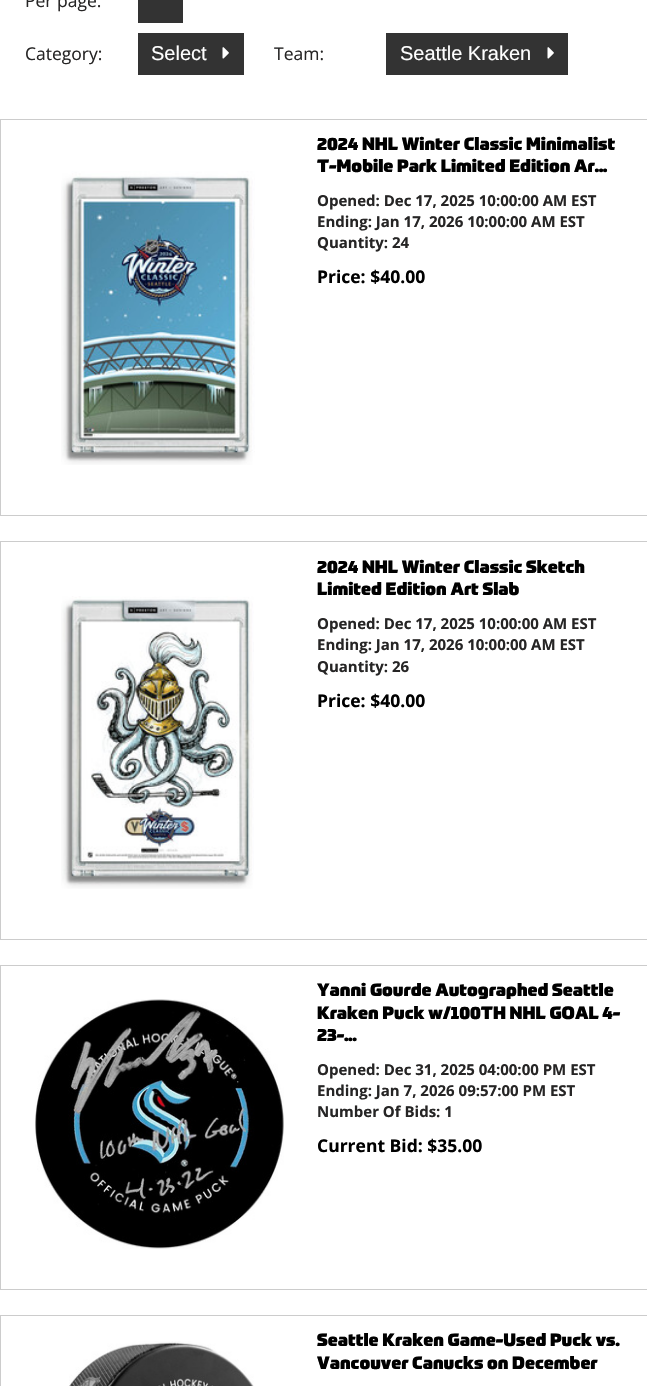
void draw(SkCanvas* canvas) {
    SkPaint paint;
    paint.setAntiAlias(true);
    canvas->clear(0xFFFFFFFF);
    SkFont font1(fontMgr->matchFamilyStyle("Open Sans", SkFontStyle::Normal()), 17.5f);
    font1.setSubpixel(true);
    paint.setColor(0xFF262525);
    canvas->drawString("Per page:", 25, 7, font1, paint);
    paint.setColor(0xFF333333);
    canvas->drawRect(SkRect::MakeXYWH(138, 0, 45, 23), paint);
    paint.setColor(0xFF262525);
    canvas->drawString("Category:", 25, 60, font1, paint);
    paint.setColor(0xFF333333);
    canvas->drawRect(SkRect::MakeXYWH(138, 33, 106, 42), paint);
    SkFont font2(fontMgr->matchFamilyStyle("Liberation Sans", SkFontStyle::Normal()), 20);
    font2.setSubpixel(true);
    paint.setColor(0xFFFFFFFF);
    canvas->drawString("Select", 151, 60, font2, paint);
    canvas->drawImageRect(SkImages::DeferredFromEncodedData(SkData::MakeFromFileName("img1.png")), SkRect::MakeXYWH(222, 47, 7, 12), SkSamplingOptions());
    paint.setColor(0xFF262525);
    canvas->drawString("Team:", 274, 60, font1, paint);
    paint.setColor(0xFF333333);
    canvas->drawRect(SkRect::MakeXYWH(386, 33, 182, 42), paint);
    paint.setColor(0xFFFFFFFF);
    canvas->drawString("Seattle Kraken", 400, 60, font2, paint);
    canvas->drawImageRect(SkImages::DeferredFromEncodedData(SkData::MakeFromFileName("img1.png")), SkRect::MakeXYWH(547, 47, 7, 12), SkSamplingOptions());
    paint.setStyle(SkPaint::kStroke_Style);
    paint.setStrokeWidth(1);
    paint.setColor(0xFFCCCCCC);
    canvas->drawRect(SkRect::MakeXYWH(0.5f, 119.5f, 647, 396), paint);
    canvas->drawImageRect(SkImages::DeferredFromEncodedData(SkData::MakeFromFileName("img2.png")), SkRect::MakeXYWH(61, 171, 194, 294), SkSamplingOptions());
    SkFont font3(fontMgr->matchFamilyStyle("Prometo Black", SkFontStyle(900, SkFontStyle::kNormal_Width, SkFontStyle::kUpright_Slant)), 17.5f);
    font3.setSubpixel(true);
    paint.setStyle(SkPaint::kFill_Style);
    paint.setColor(0xFF000000);
    canvas->drawString("2024 NHL Winter Classic Minimalist", 317, 150, font3, paint);
    canvas->drawString("T-Mobile Park Limited Edition Ar...", 317, 172, font3, paint);
    SkFont font4(fontMgr->matchFamilyStyle("Open Sans", SkFontStyle::Bold()), 15);
    font4.setSubpixel(true);
    paint.setColor(0xFF262525);
    canvas->drawString("Opened: Dec 17, 2025 10:00:00 AM EST", 317, 206, font4, paint);
    canvas->drawString("Ending: Jan 17, 2026 10:00:00 AM EST", 317, 227, font4, paint);
    canvas->drawString("Quantity: 24", 317, 248, font4, paint);
    SkFont font5(fontMgr->matchFamilyStyle("Open Sans", SkFontStyle::Bold()), 17.5f);
    font5.setSubpixel(true);
    paint.setColor(0xFF000000);
    canvas->drawString("Price: $40.00", 317, 283, font5, paint);
    paint.setStyle(SkPaint::kStroke_Style);
    paint.setColor(0xFFCCCCCC);
    canvas->drawRect(SkRect::MakeXYWH(0.5f, 541.5f, 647, 398), paint);
    canvas->drawImageRect(SkImages::DeferredFromEncodedData(SkData::MakeFromFileName("img3.png")), SkRect::MakeXYWH(61, 596, 193, 293), SkSamplingOptions());
    paint.setStyle(SkPaint::kFill_Style);
    paint.setColor(0xFF000000);
    canvas->drawString("2024 NHL Winter Classic Sketch", 317, 573, font3, paint);
    canvas->drawString("Limited Edition Art Slab", 317, 595, font3, paint);
    paint.setColor(0xFF262525);
    canvas->drawString("Opened: Dec 17, 2025 10:00:00 AM EST", 317, 629, font4, paint);
    canvas->drawString("Ending: Jan 17, 2026 10:00:00 AM EST", 317, 650, font4, paint);
    canvas->drawString("Quantity: 26", 317, 672, font4, paint);
    paint.setColor(0xFF000000);
    canvas->drawString("Price: $40.00", 317, 707, font5, paint);
    paint.setStyle(SkPaint::kStroke_Style);
    paint.setColor(0xFFCCCCCC);
    canvas->drawRect(SkRect::MakeXYWH(0.5f, 965.5f, 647, 324), paint);
    canvas->drawImageRect(SkImages::DeferredFromEncodedData(SkData::MakeFromFileName("img4.png")), SkRect::MakeXYWH(35, 999, 249, 250), SkSamplingOptions());
    paint.setStyle(SkPaint::kFill_Style);
    paint.setColor(0xFF000000);
    canvas->drawString("Yanni Gourde Autographed Seattle", 317, 996, font3, paint);
    canvas->drawString("Kraken Puck w/100TH NHL GOAL 4-", 317, 1019, font3, paint);
    canvas->drawString("23-...", 317, 1041, font3, paint);
    paint.setColor(0xFF262525);
    canvas->drawString("Opened: Dec 31, 2025 04:00:00 PM EST", 317, 1075, font4, paint);
    canvas->drawString("Ending: Jan 7, 2026 09:57:00 PM EST", 317, 1096, font4, paint);
    canvas->drawString("Number Of Bids: 1", 317, 1117, font4, paint);
    paint.setColor(0xFF000000);
    canvas->drawString("Current Bid: $35.00", 317, 1152, font5, paint);
    paint.setStyle(SkPaint::kStroke_Style);
    paint.setColor(0xFFCCCCCC);
    canvas->drawRect(SkRect::MakeXYWH(0.5f, 1315.5f, 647, 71), paint);
    canvas->drawImageRect(SkImages::DeferredFromEncodedData(SkData::MakeFromFileName("img5.png")), SkRect::MakeXYWH(69, 1341, 185, 45), SkSamplingOptions());
    paint.setStyle(SkPaint::kFill_Style);
    paint.setColor(0xFF000000);
    canvas->drawString("Seattle Kraken Game-Used Puck vs.", 317, 1346, font3, paint);
    canvas->drawString("Vancouver Canucks on December", 317, 1369, font3, paint);
}
